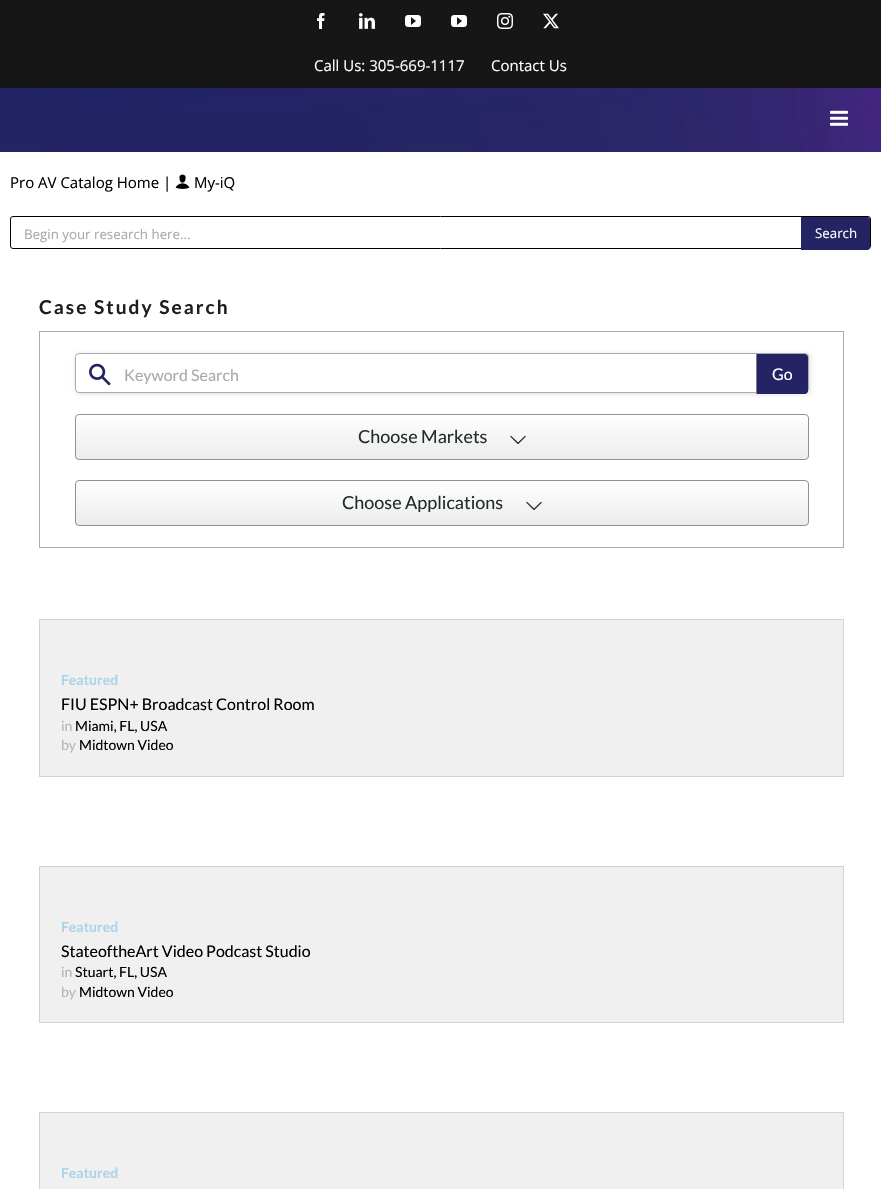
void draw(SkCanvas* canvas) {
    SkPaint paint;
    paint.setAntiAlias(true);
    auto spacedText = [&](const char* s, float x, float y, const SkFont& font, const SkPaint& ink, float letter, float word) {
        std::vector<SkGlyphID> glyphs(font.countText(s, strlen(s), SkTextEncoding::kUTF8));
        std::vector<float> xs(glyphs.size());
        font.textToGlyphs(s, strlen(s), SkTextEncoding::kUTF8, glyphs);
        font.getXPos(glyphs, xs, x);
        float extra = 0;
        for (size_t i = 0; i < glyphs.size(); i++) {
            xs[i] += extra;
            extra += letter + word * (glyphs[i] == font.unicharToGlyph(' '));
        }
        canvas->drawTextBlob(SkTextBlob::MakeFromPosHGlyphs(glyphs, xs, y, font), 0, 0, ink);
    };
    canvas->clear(0xFFFFFFFF);
    paint.setColor(0xFF161616);
    canvas->drawRect(SkRect::MakeXYWH(0, 0, 881, 88), paint);
    canvas->drawImageRect(SkImages::DeferredFromEncodedData(SkData::MakeFromFileName("img1.png")), SkRect::MakeXYWH(317, 13, 8, 16), SkSamplingOptions());
    canvas->drawImageRect(SkImages::DeferredFromEncodedData(SkData::MakeFromFileName("img2.png")), SkRect::MakeXYWH(359, 13, 16, 16), SkSamplingOptions());
    canvas->drawImageRect(SkImages::DeferredFromEncodedData(SkData::MakeFromFileName("img3.png")), SkRect::MakeXYWH(405, 15, 16, 12), SkSamplingOptions());
    canvas->drawImageRect(SkImages::DeferredFromEncodedData(SkData::MakeFromFileName("img3.png")), SkRect::MakeXYWH(451, 15, 16, 12), SkSamplingOptions());
    canvas->drawImageRect(SkImages::DeferredFromEncodedData(SkData::MakeFromFileName("img4.png")), SkRect::MakeXYWH(497, 13, 16, 16), SkSamplingOptions());
    canvas->drawImageRect(SkImages::DeferredFromEncodedData(SkData::MakeFromFileName("img5.png")), SkRect::MakeXYWH(543, 13, 16, 16), SkSamplingOptions());
    SkFont font1(fontMgr->matchFamilyStyle("Open Sans", SkFontStyle::Normal()), 15);
    font1.setSubpixel(true);
    paint.setColor(0xFFFFFFFF);
    canvas->drawString("Call Us: 305-669-1117", 314, 71, font1, paint);
    canvas->drawString("Contact Us", 491, 71, font1, paint);
    canvas->drawImageRect(SkImages::DeferredFromEncodedData(SkData::MakeFromFileName("img6.png")), SkRect::MakeXYWH(0, 88, 881, 64), SkSamplingOptions());
    canvas->drawImageRect(SkImages::DeferredFromEncodedData(SkData::MakeFromFileName("img7.png")), SkRect::MakeXYWH(830, 110, 18, 16), SkSamplingOptions());
    paint.setColor(0xFF000000);
    canvas->drawString("Pro AV Catalog Home |", 10, 188, font1, paint);
    canvas->drawImageRect(SkImages::DeferredFromEncodedData(SkData::MakeFromFileName("img8.png")), SkRect::MakeXYWH(175, 174, 15, 15), SkSamplingOptions());
    canvas->drawString("My-iQ", 194, 188, font1, paint);
    paint.setStyle(SkPaint::kStroke_Style);
    paint.setStrokeWidth(1);
    canvas->drawRoundRect(SkRect::MakeXYWH(10.5f, 216.5f, 860, 32), 2.5f, 2.5f, paint);
    SkFont font2(fontMgr->matchFamilyStyle("Open Sans", SkFontStyle::Normal()), 13.3f);
    font2.setSubpixel(true);
    paint.setStyle(SkPaint::kFill_Style);
    paint.setColor(0xFFAAA9A9);
    canvas->drawString("Begin your research here...", 24, 239, font2, paint);
    paint.setColor(0xFF242465);
    canvas->drawPath(SkPathBuilder().moveTo(801, 217).lineTo(867.5f, 217).cubicTo(869, 217, 870, 218, 870, 219.5f).lineTo(870, 247.5f).cubicTo(870, 249, 869, 250, 867.5f, 250).lineTo(801, 250).close().detach(), paint);
    paint.setColor(0xFFFFFFFF);
    canvas->drawString("Search", 815, 238, font2, paint);
    SkFont font3(fontMgr->matchFamilyStyle("Lato", SkFontStyle::Bold()), 19.1f);
    font3.setSubpixel(true);
    paint.setColor(0xFF1E1E1E);
    spacedText("Case Study Search", 39, 314, font3, paint, 2, 0);
    paint.setStyle(SkPaint::kStroke_Style);
    paint.setColor(0xFFACACAC);
    canvas->drawRect(SkRect::MakeXYWH(39.5f, 331.5f, 804, 216), paint);
    canvas->save();
    canvas->clipPath(SkPathBuilder(SkPathFillType::kEvenOdd).moveTo(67, 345).lineTo(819, 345).lineTo(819, 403).lineTo(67, 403).close().moveTo(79, 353).lineTo(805, 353).cubicTo(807, 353, 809, 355, 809, 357).lineTo(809, 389).cubicTo(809, 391, 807, 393, 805, 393).lineTo(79, 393).cubicTo(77, 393, 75, 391, 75, 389).lineTo(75, 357).cubicTo(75, 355, 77, 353, 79, 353).close().detach(), true);
    paint.setStyle(SkPaint::kFill_Style);
    paint.setColor(0xFFDDDDDD);
    paint.setMaskFilter(SkMaskFilter::MakeBlur(kNormal_SkBlurStyle, 2.5f));
    canvas->drawRoundRect(SkRect::MakeXYWH(76, 354, 734, 40), 4, 4, paint);
    paint.setMaskFilter(nullptr);
    canvas->restore();
    paint.setStyle(SkPaint::kStroke_Style);
    paint.setColor(0xFFAAAAAA);
    canvas->drawRoundRect(SkRect::MakeXYWH(75.5f, 353.5f, 733, 39), 3.5f, 3.5f, paint);
    canvas->drawImageRect(SkImages::DeferredFromEncodedData(SkData::MakeFromFileName("img9.png")), SkRect::MakeXYWH(89, 363, 22, 23), SkSamplingOptions());
    SkFont font4(fontMgr->matchFamilyStyle("Lato", SkFontStyle::Normal()), 16);
    font4.setSubpixel(true);
    paint.setStyle(SkPaint::kFill_Style);
    paint.setColor(0xFFAAA9A9);
    canvas->drawString("Keyword Search", 124, 381, font4, paint);
    paint.setColor(0xFF242465);
    canvas->drawPath(SkPathBuilder().moveTo(756, 354).lineTo(805, 354).cubicTo(806.5f, 354, 808, 355.5f, 808, 357).lineTo(808, 391).cubicTo(808, 392.5f, 806.5f, 394, 805, 394).lineTo(756, 394).close().detach(), paint);
    paint.setColor(0xFF7C7CA3);
    canvas->drawRect(SkRect::MakeXYWH(756, 354, 1, 40), paint);
    paint.setColor(0xFFFFFFFF);
    canvas->drawString("Go", 772, 380, font4, paint);
    canvas->save();
    canvas->clipPath(SkPathBuilder().moveTo(79, 414).lineTo(805, 414).cubicTo(807, 414, 809, 416, 809, 418).lineTo(809, 456).cubicTo(809, 458, 807, 460, 805, 460).lineTo(79, 460).cubicTo(77, 460, 75, 458, 75, 456).lineTo(75, 418).cubicTo(75, 416, 77, 414, 79, 414).close().detach(), true);
    {
        const SkColor colors[] = {0xFFFFFFFF, 0xFFECECEC};
        const float stops[] = {0, 1};
        const SkPoint ends[] = {{442, 415}, {442, 459}};
        paint.setShader(SkGradientShader::MakeLinear(ends, colors, stops, 2, SkTileMode::kClamp));
        paint.setAlpha(255);
    }
    canvas->drawRect(SkRect::MakeXYWH(75, 415, 734, 44), paint);
    canvas->restore();
    paint.setStyle(SkPaint::kStroke_Style);
    paint.setShader(nullptr);
    paint.setColor(0xFF919191);
    canvas->drawRoundRect(SkRect::MakeXYWH(75.5f, 414.5f, 733, 45), 3.5f, 3.5f, paint);
    SkFont font5(fontMgr->matchFamilyStyle("Lato", SkFontStyle::Normal()), 18);
    font5.setSubpixel(true);
    paint.setStyle(SkPaint::kFill_Style);
    paint.setColor(0xFF212C2E);
    canvas->drawString("Choose Markets", 358, 443, font5, paint);
    canvas->drawImageRect(SkImages::DeferredFromEncodedData(SkData::MakeFromFileName("img10.png")), SkRect::MakeXYWH(510, 435, 16, 9), SkSamplingOptions());
    canvas->save();
    canvas->clipPath(SkPathBuilder().moveTo(79, 480).lineTo(805, 480).cubicTo(807, 480, 809, 482, 809, 484).lineTo(809, 522).cubicTo(809, 524, 807, 526, 805, 526).lineTo(79, 526).cubicTo(77, 526, 75, 524, 75, 522).lineTo(75, 484).cubicTo(75, 482, 77, 480, 79, 480).close().detach(), true);
    {
        const SkColor colors[] = {0xFFFFFFFF, 0xFFECECEC};
        const float stops[] = {0, 1};
        const SkPoint ends[] = {{442, 481}, {442, 525}};
        paint.setShader(SkGradientShader::MakeLinear(ends, colors, stops, 2, SkTileMode::kClamp));
        paint.setAlpha(255);
    }
    canvas->drawRect(SkRect::MakeXYWH(75, 481, 734, 44), paint);
    canvas->restore();
    paint.setStyle(SkPaint::kStroke_Style);
    paint.setShader(nullptr);
    paint.setColor(0xFF919191);
    canvas->drawRoundRect(SkRect::MakeXYWH(75.5f, 480.5f, 733, 45), 3.5f, 3.5f, paint);
    paint.setStyle(SkPaint::kFill_Style);
    paint.setColor(0xFF212C2E);
    canvas->drawString("Choose Applications", 342, 509, font5, paint);
    canvas->drawImageRect(SkImages::DeferredFromEncodedData(SkData::MakeFromFileName("img10.png")), SkRect::MakeXYWH(526, 501, 16, 9), SkSamplingOptions());
    paint.setColor(0xFFF0F0F0);
    canvas->drawRect(SkRect::MakeXYWH(39.5f, 619.5f, 804, 157), paint);
    paint.setStyle(SkPaint::kStroke_Style);
    paint.setColor(0xFFD2D2D2);
    canvas->drawRect(SkRect::MakeXYWH(39.5f, 619.5f, 804, 157), paint);
    SkFont font6(fontMgr->matchFamilyStyle("Lato", SkFontStyle::Bold()), 14);
    font6.setSubpixel(true);
    paint.setStyle(SkPaint::kFill_Style);
    paint.setColor(0xFFADD4E9);
    canvas->drawString("Featured", 61, 685, font6, paint);
    paint.setColor(0xFF000000);
    canvas->drawString("FIU ESPN+ Broadcast Control Room", 61, 710, font4, paint);
    SkFont font7(fontMgr->matchFamilyStyle("Lato", SkFontStyle::Normal()), 14);
    font7.setSubpixel(true);
    paint.setColor(0xFFB4B4B4);
    canvas->drawString("in", 61, 731, font7, paint);
    paint.setColor(0xFF000000);
    canvas->drawString("Miami, FL, USA", 75, 731, font7, paint);
    paint.setColor(0xFFB4B4B4);
    canvas->drawString("by", 61, 750, font7, paint);
    paint.setColor(0xFF000000);
    canvas->drawString("Midtown Video", 79, 750, font7, paint);
    paint.setColor(0xFFF0F0F0);
    canvas->drawRect(SkRect::MakeXYWH(39.5f, 866.5f, 804, 156), paint);
    paint.setStyle(SkPaint::kStroke_Style);
    paint.setColor(0xFFD2D2D2);
    canvas->drawRect(SkRect::MakeXYWH(39.5f, 866.5f, 804, 156), paint);
    paint.setStyle(SkPaint::kFill_Style);
    paint.setColor(0xFFADD4E9);
    canvas->drawString("Featured", 61, 932, font6, paint);
    paint.setColor(0xFF000000);
    canvas->drawString("StateoftheArt Video Podcast Studio", 61, 957, font4, paint);
    paint.setColor(0xFFB4B4B4);
    canvas->drawString("in", 61, 977, font7, paint);
    paint.setColor(0xFF000000);
    canvas->drawString("Stuart, FL, USA", 75, 977, font7, paint);
    paint.setColor(0xFFB4B4B4);
    canvas->drawString("by", 61, 997, font7, paint);
    paint.setColor(0xFF000000);
    canvas->drawString("Midtown Video", 79, 997, font7, paint);
    paint.setColor(0xFFF0F0F0);
    canvas->drawRect(SkRect::MakeXYWH(39.5f, 1112.5f, 804, 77), paint);
    paint.setStyle(SkPaint::kStroke_Style);
    paint.setColor(0xFFD2D2D2);
    canvas->drawRect(SkRect::MakeXYWH(39.5f, 1112.5f, 804, 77), paint);
    paint.setStyle(SkPaint::kFill_Style);
    paint.setColor(0xFFADD4E9);
    canvas->drawString("Featured", 61, 1178, font6, paint);
}
